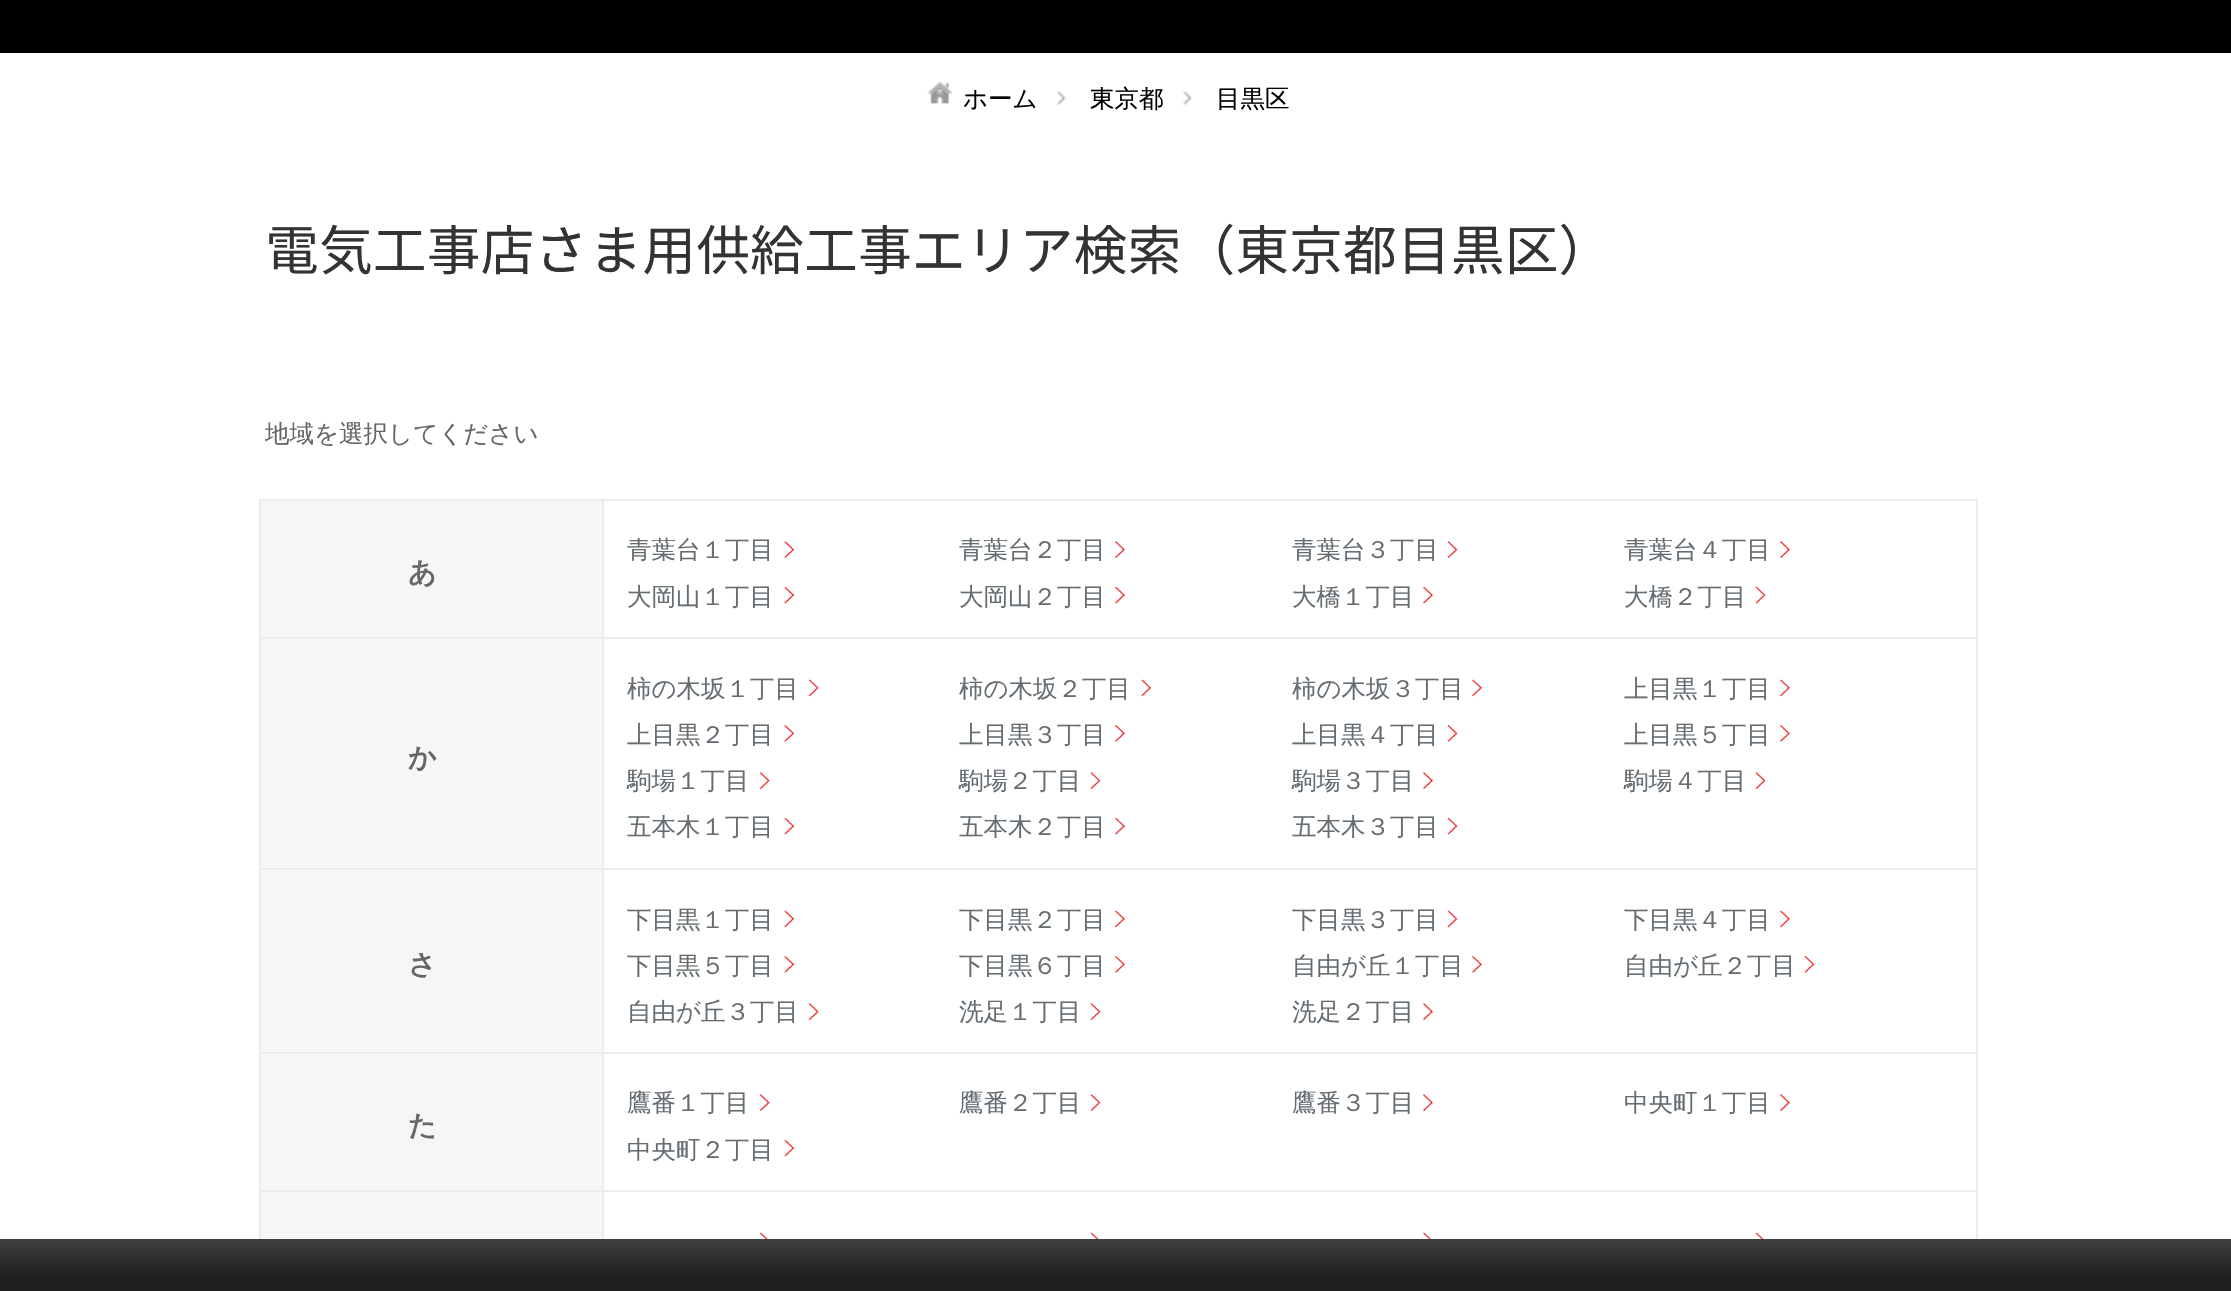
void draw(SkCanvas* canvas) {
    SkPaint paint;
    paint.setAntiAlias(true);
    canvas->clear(0xFFFFFFFF);
    paint.setColor(0xFF000000);
    canvas->drawRect(SkRect::MakeXYWH(0, 0, 2231, 53), paint);
    canvas->drawImageRect(SkImages::DeferredFromEncodedData(SkData::MakeFromFileName("img1.png")), SkRect::MakeXYWH(927, 82, 25, 22), SkSamplingOptions());
    SkFont font1(fontMgr->matchFamilyStyle("WenQuanYi Zen Hei", SkFontStyle(500, SkFontStyle::kNormal_Width, SkFontStyle::kUpright_Slant)), 24.5f);
    font1.setSubpixel(true);
    canvas->drawString("ホーム", 963, 107, font1, paint);
    canvas->drawImageRect(SkImages::DeferredFromEncodedData(SkData::MakeFromFileName("img2.png")), SkRect::MakeXYWH(1056, 91, 10, 15), SkSamplingOptions());
    canvas->drawString("東京都", 1090, 107, font1, paint);
    canvas->drawImageRect(SkImages::DeferredFromEncodedData(SkData::MakeFromFileName("img2.png")), SkRect::MakeXYWH(1182, 91, 10, 15), SkSamplingOptions());
    canvas->drawString("目黒区", 1216, 107, font1, paint);
    SkFont font2(fontMgr->matchFamilyStyle("Noto Sans JP", SkFontStyle::Normal()), 53.9f);
    font2.setSubpixel(true);
    paint.setColor(0xFF333333);
    canvas->drawString("電気工事店さま用供給工事エリア検索（東京都目黒区）", 265, 270, font2, paint);
    paint.setColor(0xFF666666);
    canvas->drawString("地域を選択してください", 265, 442, font1, paint);
    paint.setColor(0xFFECECEC);
    canvas->drawRect(SkRect::MakeXYWH(259, 499, 1719, 2), paint);
    canvas->drawRect(SkRect::MakeXYWH(1976, 499, 2, 138), paint);
    canvas->drawRect(SkRect::MakeXYWH(259, 499, 2, 138), paint);
    paint.setColor(0xFFF5F6F8);
    canvas->drawRect(SkRect::MakeXYWH(261, 501, 341, 136), paint);
    paint.setColor(0xFFECECEC);
    canvas->drawRect(SkRect::MakeXYWH(602, 501, 2, 136), paint);
    SkFont font3(fontMgr->matchFamilyStyle("WenQuanYi Zen Hei", SkFontStyle::Bold()), 28);
    font3.setSubpixel(true);
    paint.setColor(0xFF666666);
    canvas->drawString("あ", 408, 582, font3, paint);
    paint.setColor(0xFF656D73);
    canvas->drawString("青葉台１丁目", 627, 558, font1, paint);
    canvas->drawImageRect(SkImages::DeferredFromEncodedData(SkData::MakeFromFileName("img3.png")), SkRect::MakeXYWH(784, 541, 11, 18), SkSamplingOptions());
    canvas->drawString("青葉台２丁目", 959, 558, font1, paint);
    canvas->drawImageRect(SkImages::DeferredFromEncodedData(SkData::MakeFromFileName("img4.png")), SkRect::MakeXYWH(1114, 541, 12, 18), SkSamplingOptions());
    canvas->drawString("青葉台３丁目", 1292, 558, font1, paint);
    canvas->drawImageRect(SkImages::DeferredFromEncodedData(SkData::MakeFromFileName("img5.png")), SkRect::MakeXYWH(1447, 540, 11, 19), SkSamplingOptions());
    canvas->drawString("青葉台４丁目", 1624, 558, font1, paint);
    canvas->drawImageRect(SkImages::DeferredFromEncodedData(SkData::MakeFromFileName("img4.png")), SkRect::MakeXYWH(1779, 541, 12, 18), SkSamplingOptions());
    canvas->drawString("大岡山１丁目", 627, 605, font1, paint);
    canvas->drawImageRect(SkImages::DeferredFromEncodedData(SkData::MakeFromFileName("img6.png")), SkRect::MakeXYWH(784, 586, 11, 18), SkSamplingOptions());
    canvas->drawString("大岡山２丁目", 959, 605, font1, paint);
    canvas->drawImageRect(SkImages::DeferredFromEncodedData(SkData::MakeFromFileName("img7.png")), SkRect::MakeXYWH(1114, 586, 12, 18), SkSamplingOptions());
    canvas->drawString("大橋１丁目", 1292, 605, font1, paint);
    canvas->drawImageRect(SkImages::DeferredFromEncodedData(SkData::MakeFromFileName("img7.png")), SkRect::MakeXYWH(1422, 586, 12, 18), SkSamplingOptions());
    canvas->drawString("大橋２丁目", 1624, 605, font1, paint);
    canvas->drawImageRect(SkImages::DeferredFromEncodedData(SkData::MakeFromFileName("img8.png")), SkRect::MakeXYWH(1755, 586, 11, 18), SkSamplingOptions());
    paint.setColor(0xFFECECEC);
    canvas->drawRect(SkRect::MakeXYWH(259, 637, 1719, 2), paint);
    canvas->drawRect(SkRect::MakeXYWH(1976, 637, 2, 231), paint);
    canvas->drawRect(SkRect::MakeXYWH(259, 637, 2, 231), paint);
    paint.setColor(0xFFF5F6F8);
    canvas->drawRect(SkRect::MakeXYWH(261, 639, 341, 229), paint);
    paint.setColor(0xFFECECEC);
    canvas->drawRect(SkRect::MakeXYWH(602, 639, 2, 229), paint);
    paint.setColor(0xFF666666);
    canvas->drawString("か", 408, 767, font3, paint);
    paint.setColor(0xFF656D73);
    canvas->drawString("柿の木坂１丁目", 627, 697, font1, paint);
    canvas->drawImageRect(SkImages::DeferredFromEncodedData(SkData::MakeFromFileName("img9.png")), SkRect::MakeXYWH(808, 679, 11, 18), SkSamplingOptions());
    canvas->drawString("柿の木坂２丁目", 959, 697, font1, paint);
    canvas->drawImageRect(SkImages::DeferredFromEncodedData(SkData::MakeFromFileName("img10.png")), SkRect::MakeXYWH(1141, 679, 11, 18), SkSamplingOptions());
    canvas->drawString("柿の木坂３丁目", 1292, 697, font1, paint);
    canvas->drawImageRect(SkImages::DeferredFromEncodedData(SkData::MakeFromFileName("img11.png")), SkRect::MakeXYWH(1471, 679, 12, 18), SkSamplingOptions());
    canvas->drawString("上目黒１丁目", 1624, 697, font1, paint);
    canvas->drawImageRect(SkImages::DeferredFromEncodedData(SkData::MakeFromFileName("img11.png")), SkRect::MakeXYWH(1779, 679, 12, 18), SkSamplingOptions());
    canvas->drawString("上目黒２丁目", 627, 743, font1, paint);
    canvas->drawImageRect(SkImages::DeferredFromEncodedData(SkData::MakeFromFileName("img12.png")), SkRect::MakeXYWH(784, 724, 11, 18), SkSamplingOptions());
    canvas->drawString("上目黒３丁目", 959, 743, font1, paint);
    canvas->drawImageRect(SkImages::DeferredFromEncodedData(SkData::MakeFromFileName("img13.png")), SkRect::MakeXYWH(1114, 724, 12, 18), SkSamplingOptions());
    canvas->drawString("上目黒４丁目", 1292, 743, font1, paint);
    canvas->drawImageRect(SkImages::DeferredFromEncodedData(SkData::MakeFromFileName("img14.png")), SkRect::MakeXYWH(1447, 724, 11, 18), SkSamplingOptions());
    canvas->drawString("上目黒５丁目", 1624, 743, font1, paint);
    canvas->drawImageRect(SkImages::DeferredFromEncodedData(SkData::MakeFromFileName("img13.png")), SkRect::MakeXYWH(1779, 724, 12, 18), SkSamplingOptions());
    canvas->drawString("駒場１丁目", 627, 789, font1, paint);
    canvas->drawImageRect(SkImages::DeferredFromEncodedData(SkData::MakeFromFileName("img15.png")), SkRect::MakeXYWH(759, 771, 11, 19), SkSamplingOptions());
    canvas->drawString("駒場２丁目", 959, 789, font1, paint);
    canvas->drawImageRect(SkImages::DeferredFromEncodedData(SkData::MakeFromFileName("img16.png")), SkRect::MakeXYWH(1090, 771, 11, 19), SkSamplingOptions());
    canvas->drawString("駒場３丁目", 1292, 789, font1, paint);
    canvas->drawImageRect(SkImages::DeferredFromEncodedData(SkData::MakeFromFileName("img4.png")), SkRect::MakeXYWH(1422, 772, 12, 18), SkSamplingOptions());
    canvas->drawString("駒場４丁目", 1624, 789, font1, paint);
    canvas->drawImageRect(SkImages::DeferredFromEncodedData(SkData::MakeFromFileName("img5.png")), SkRect::MakeXYWH(1755, 771, 11, 19), SkSamplingOptions());
    canvas->drawString("五本木１丁目", 627, 835, font1, paint);
    canvas->drawImageRect(SkImages::DeferredFromEncodedData(SkData::MakeFromFileName("img6.png")), SkRect::MakeXYWH(784, 817, 11, 18), SkSamplingOptions());
    canvas->drawString("五本木２丁目", 959, 835, font1, paint);
    canvas->drawImageRect(SkImages::DeferredFromEncodedData(SkData::MakeFromFileName("img7.png")), SkRect::MakeXYWH(1114, 817, 12, 18), SkSamplingOptions());
    canvas->drawString("五本木３丁目", 1292, 835, font1, paint);
    canvas->drawImageRect(SkImages::DeferredFromEncodedData(SkData::MakeFromFileName("img8.png")), SkRect::MakeXYWH(1447, 817, 11, 18), SkSamplingOptions());
    paint.setColor(0xFFECECEC);
    canvas->drawRect(SkRect::MakeXYWH(259, 868, 1719, 2), paint);
    canvas->drawRect(SkRect::MakeXYWH(1976, 868, 2, 184), paint);
    canvas->drawRect(SkRect::MakeXYWH(259, 868, 2, 184), paint);
    paint.setColor(0xFFF5F6F8);
    canvas->drawRect(SkRect::MakeXYWH(261, 870, 341, 182), paint);
    paint.setColor(0xFFECECEC);
    canvas->drawRect(SkRect::MakeXYWH(602, 870, 2, 182), paint);
    paint.setColor(0xFF666666);
    canvas->drawString("さ", 408, 974, font3, paint);
    paint.setColor(0xFF656D73);
    canvas->drawString("下目黒１丁目", 627, 928, font1, paint);
    canvas->drawImageRect(SkImages::DeferredFromEncodedData(SkData::MakeFromFileName("img17.png")), SkRect::MakeXYWH(784, 910, 11, 18), SkSamplingOptions());
    canvas->drawString("下目黒２丁目", 959, 928, font1, paint);
    canvas->drawImageRect(SkImages::DeferredFromEncodedData(SkData::MakeFromFileName("img11.png")), SkRect::MakeXYWH(1114, 910, 12, 18), SkSamplingOptions());
    canvas->drawString("下目黒３丁目", 1292, 928, font1, paint);
    canvas->drawImageRect(SkImages::DeferredFromEncodedData(SkData::MakeFromFileName("img18.png")), SkRect::MakeXYWH(1447, 910, 11, 18), SkSamplingOptions());
    canvas->drawString("下目黒４丁目", 1624, 928, font1, paint);
    canvas->drawImageRect(SkImages::DeferredFromEncodedData(SkData::MakeFromFileName("img11.png")), SkRect::MakeXYWH(1779, 910, 12, 18), SkSamplingOptions());
    canvas->drawString("下目黒５丁目", 627, 974, font1, paint);
    canvas->drawImageRect(SkImages::DeferredFromEncodedData(SkData::MakeFromFileName("img12.png")), SkRect::MakeXYWH(784, 955, 11, 18), SkSamplingOptions());
    canvas->drawString("下目黒６丁目", 959, 974, font1, paint);
    canvas->drawImageRect(SkImages::DeferredFromEncodedData(SkData::MakeFromFileName("img13.png")), SkRect::MakeXYWH(1114, 955, 12, 18), SkSamplingOptions());
    canvas->drawString("自由が丘１丁目", 1292, 974, font1, paint);
    canvas->drawImageRect(SkImages::DeferredFromEncodedData(SkData::MakeFromFileName("img13.png")), SkRect::MakeXYWH(1471, 955, 12, 18), SkSamplingOptions());
    canvas->drawString("自由が丘２丁目", 1624, 974, font1, paint);
    canvas->drawImageRect(SkImages::DeferredFromEncodedData(SkData::MakeFromFileName("img19.png")), SkRect::MakeXYWH(1804, 955, 11, 18), SkSamplingOptions());
    canvas->drawString("自由が丘３丁目", 627, 1020, font1, paint);
    canvas->drawImageRect(SkImages::DeferredFromEncodedData(SkData::MakeFromFileName("img15.png")), SkRect::MakeXYWH(808, 1002, 11, 19), SkSamplingOptions());
    canvas->drawString("洗足１丁目", 959, 1020, font1, paint);
    canvas->drawImageRect(SkImages::DeferredFromEncodedData(SkData::MakeFromFileName("img16.png")), SkRect::MakeXYWH(1090, 1002, 11, 19), SkSamplingOptions());
    canvas->drawString("洗足２丁目", 1292, 1020, font1, paint);
    canvas->drawImageRect(SkImages::DeferredFromEncodedData(SkData::MakeFromFileName("img4.png")), SkRect::MakeXYWH(1422, 1003, 12, 18), SkSamplingOptions());
    paint.setColor(0xFFECECEC);
    canvas->drawRect(SkRect::MakeXYWH(259, 1052, 1719, 2), paint);
    canvas->drawRect(SkRect::MakeXYWH(1976, 1052, 2, 138), paint);
    canvas->drawRect(SkRect::MakeXYWH(259, 1052, 2, 138), paint);
    paint.setColor(0xFFF5F6F8);
    canvas->drawRect(SkRect::MakeXYWH(261, 1054, 341, 136), paint);
    paint.setColor(0xFFECECEC);
    canvas->drawRect(SkRect::MakeXYWH(602, 1054, 2, 136), paint);
    paint.setColor(0xFF666666);
    canvas->drawString("た", 408, 1135, font3, paint);
    paint.setColor(0xFF656D73);
    canvas->drawString("鷹番１丁目", 627, 1111, font1, paint);
    canvas->drawImageRect(SkImages::DeferredFromEncodedData(SkData::MakeFromFileName("img15.png")), SkRect::MakeXYWH(759, 1093, 11, 19), SkSamplingOptions());
    canvas->drawString("鷹番２丁目", 959, 1111, font1, paint);
    canvas->drawImageRect(SkImages::DeferredFromEncodedData(SkData::MakeFromFileName("img16.png")), SkRect::MakeXYWH(1090, 1093, 11, 19), SkSamplingOptions());
    canvas->drawString("鷹番３丁目", 1292, 1111, font1, paint);
    canvas->drawImageRect(SkImages::DeferredFromEncodedData(SkData::MakeFromFileName("img4.png")), SkRect::MakeXYWH(1422, 1094, 12, 18), SkSamplingOptions());
    canvas->drawString("中央町１丁目", 1624, 1111, font1, paint);
    canvas->drawImageRect(SkImages::DeferredFromEncodedData(SkData::MakeFromFileName("img4.png")), SkRect::MakeXYWH(1779, 1094, 12, 18), SkSamplingOptions());
    canvas->drawString("中央町２丁目", 627, 1158, font1, paint);
    canvas->drawImageRect(SkImages::DeferredFromEncodedData(SkData::MakeFromFileName("img6.png")), SkRect::MakeXYWH(784, 1139, 11, 18), SkSamplingOptions());
    paint.setColor(0xFFECECEC);
    canvas->drawRect(SkRect::MakeXYWH(259, 1190, 1719, 2), paint);
    canvas->drawRect(SkRect::MakeXYWH(1976, 1190, 2, 49), paint);
    canvas->drawRect(SkRect::MakeXYWH(259, 1190, 2, 49), paint);
    paint.setColor(0xFFF5F6F8);
    canvas->drawRect(SkRect::MakeXYWH(261, 1192, 341, 47), paint);
    paint.setColor(0xFFECECEC);
    canvas->drawRect(SkRect::MakeXYWH(602, 1192, 2, 47), paint);
    canvas->drawImageRect(SkImages::DeferredFromEncodedData(SkData::MakeFromFileName("img20.png")), SkRect::MakeXYWH(759, 1232, 9, 7), SkSamplingOptions());
    canvas->drawImageRect(SkImages::DeferredFromEncodedData(SkData::MakeFromFileName("img21.png")), SkRect::MakeXYWH(1090, 1232, 9, 7), SkSamplingOptions());
    canvas->drawImageRect(SkImages::DeferredFromEncodedData(SkData::MakeFromFileName("img22.png")), SkRect::MakeXYWH(1422, 1232, 10, 7), SkSamplingOptions());
    canvas->drawImageRect(SkImages::DeferredFromEncodedData(SkData::MakeFromFileName("img23.png")), SkRect::MakeXYWH(1755, 1232, 9, 7), SkSamplingOptions());
    {
        const SkColor colors[] = {0xFF3F3F3F, 0xFF1E1E1E};
        const float stops[] = {0, 0.75f};
        const SkPoint ends[] = {{1116, 1239}, {1116, 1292}};
        paint.setShader(SkGradientShader::MakeLinear(ends, colors, stops, 2, SkTileMode::kClamp));
        paint.setAlpha(255);
    }
    canvas->drawRect(SkRect::MakeXYWH(0, 1239, 2231, 52), paint);
}
